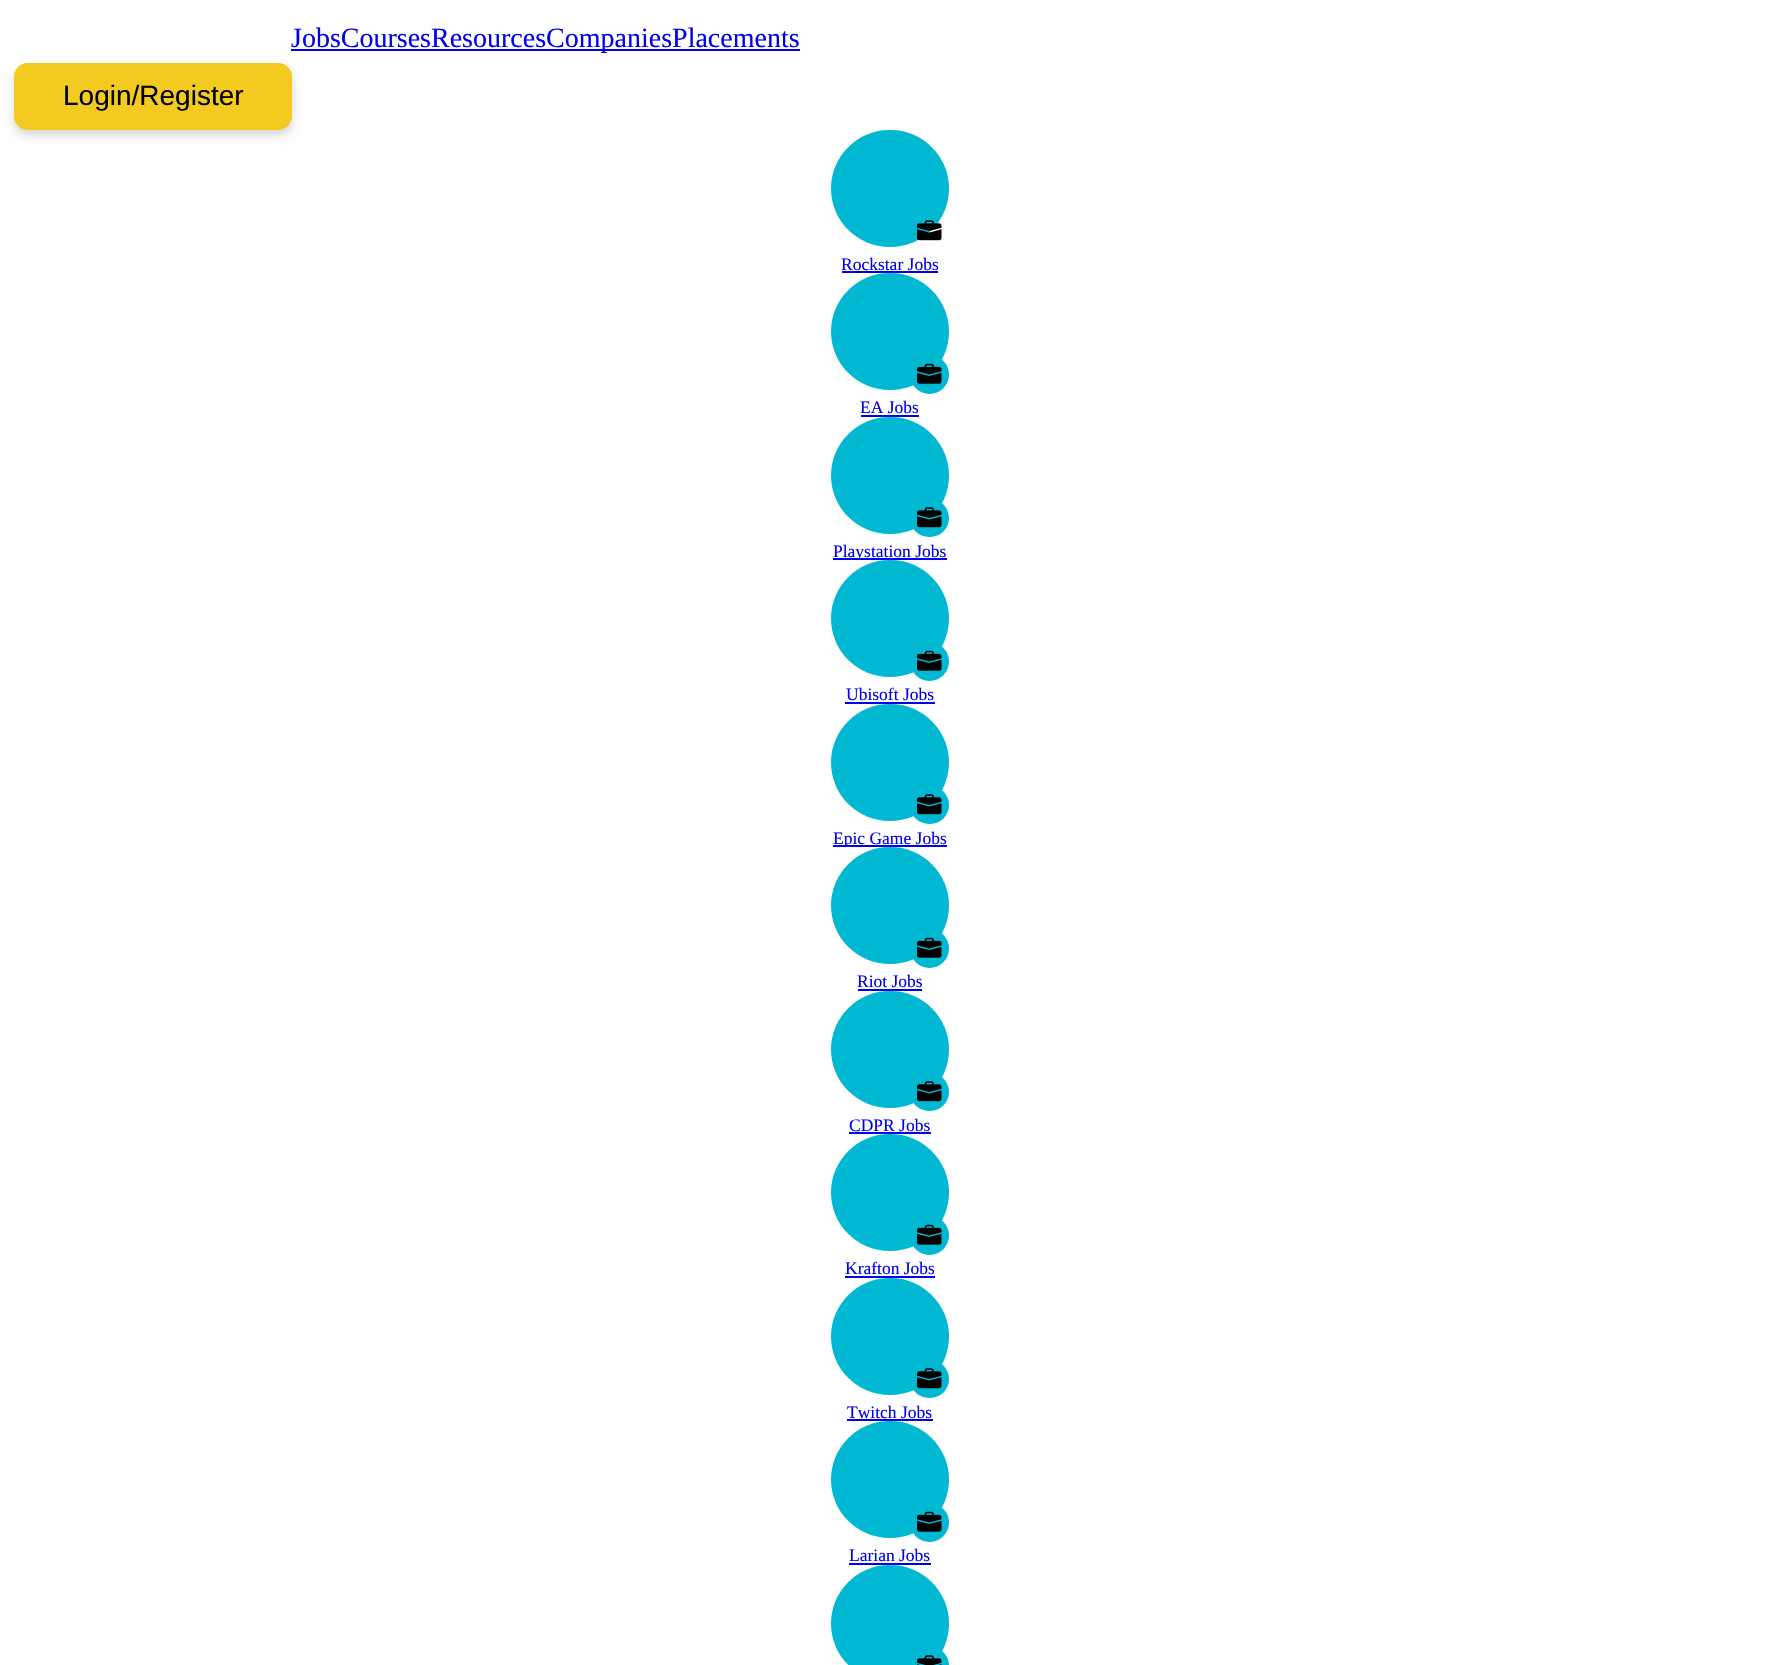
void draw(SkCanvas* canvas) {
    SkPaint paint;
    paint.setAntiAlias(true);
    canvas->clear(0xFFFFFFFF);
    paint.setColor(0xFF0000EE);
    canvas->drawRect(SkRect::MakeXYWH(291, 49, 509, 2), paint);
    SkFont font1(fontMgr->matchFamilyStyle("Liberation Serif", SkFontStyle::Normal()), 28);
    font1.setSubpixel(true);
    canvas->drawString("JobsCoursesResourcesCompaniesPlacements", 291, 47, font1, paint);
    paint.setColor(0x29000000);
    paint.setMaskFilter(SkMaskFilter::MakeBlur(kNormal_SkBlurStyle, 5));
    canvas->drawRoundRect(SkRect::MakeXYWH(14, 68, 278, 67), 14, 14, paint);
    paint.setMaskFilter(nullptr);
    paint.setColor(0xFFF3CA20);
    canvas->drawRoundRect(SkRect::MakeXYWH(14, 63, 278, 67), 14, 14, paint);
    SkFont font2(fontMgr->matchFamilyStyle("Liberation Sans", SkFontStyle::Normal()), 28);
    font2.setSubpixel(true);
    paint.setColor(0xFF000000);
    canvas->drawString("Login/Register", 63, 105, font2, paint);
    paint.setColor(0xFF01B8D2);
    canvas->drawRoundRect(SkRect::MakeXYWH(831, 130, 118, 117), 58.5f, 58.5f, paint);
    canvas->drawImageRect(SkImages::DeferredFromEncodedData(SkData::MakeFromFileName("img1.png")), SkRect::MakeXYWH(917, 220, 25, 21), SkSamplingOptions());
    SkFont font3(fontMgr->matchFamilyStyle("Liberation Serif", SkFontStyle::Normal()), 17.5f);
    font3.setSubpixel(true);
    paint.setColor(0xFF0000EE);
    canvas->drawString("Rockstar Jobs", 841, 270, font3, paint);
    canvas->drawRect(SkRect::MakeXYWH(842, 271, 96, 2), paint);
    paint.setColor(0xFF01B8D2);
    canvas->drawRoundRect(SkRect::MakeXYWH(831, 273, 118, 117), 58.5f, 58.5f, paint);
    canvas->drawCircle(929.5f, 374.5f, 19.5f, paint);
    canvas->drawImageRect(SkImages::DeferredFromEncodedData(SkData::MakeFromFileName("img2.png")), SkRect::MakeXYWH(917, 363, 25, 21), SkSamplingOptions());
    paint.setColor(0xFF0000EE);
    canvas->drawString("EA Jobs", 860, 413, font3, paint);
    canvas->drawRect(SkRect::MakeXYWH(861, 415, 58, 2), paint);
    paint.setColor(0xFF01B8D2);
    canvas->drawRoundRect(SkRect::MakeXYWH(831, 417, 118, 117), 58.5f, 58.5f, paint);
    canvas->drawRoundRect(SkRect::MakeXYWH(910, 499, 39, 38), 19, 19, paint);
    canvas->drawImageRect(SkImages::DeferredFromEncodedData(SkData::MakeFromFileName("img3.png")), SkRect::MakeXYWH(917, 507, 25, 21), SkSamplingOptions());
    paint.setColor(0xFF0000EE);
    canvas->drawRect(SkRect::MakeXYWH(833, 558, 114, 2), paint);
    canvas->save();
    canvas->clipRect(SkRect::MakeXYWH(833, 541, 114, 19));
    canvas->drawString("Playstation Jobs", 833, 557, font3, paint);
    canvas->restore();
    paint.setColor(0xFF01B8D2);
    canvas->drawRoundRect(SkRect::MakeXYWH(831, 560, 118, 117), 58.5f, 58.5f, paint);
    canvas->drawCircle(929.5f, 661.5f, 19.5f, paint);
    canvas->drawImageRect(SkImages::DeferredFromEncodedData(SkData::MakeFromFileName("img2.png")), SkRect::MakeXYWH(917, 650, 25, 21), SkSamplingOptions());
    paint.setColor(0xFF0000EE);
    canvas->drawString("Ubisoft Jobs", 846, 700, font3, paint);
    canvas->drawRect(SkRect::MakeXYWH(845, 702, 90, 2), paint);
    paint.setColor(0xFF01B8D2);
    canvas->drawRoundRect(SkRect::MakeXYWH(831, 704, 118, 117), 58.5f, 58.5f, paint);
    canvas->drawRoundRect(SkRect::MakeXYWH(910, 786, 39, 38), 19, 19, paint);
    canvas->drawImageRect(SkImages::DeferredFromEncodedData(SkData::MakeFromFileName("img3.png")), SkRect::MakeXYWH(917, 794, 25, 21), SkSamplingOptions());
    paint.setColor(0xFF0000EE);
    canvas->drawRect(SkRect::MakeXYWH(833, 845, 114, 2), paint);
    canvas->save();
    canvas->clipRect(SkRect::MakeXYWH(833, 828, 114, 19));
    canvas->drawString("Epic Game Jobs", 833, 844, font3, paint);
    canvas->restore();
    paint.setColor(0xFF01B8D2);
    canvas->drawRoundRect(SkRect::MakeXYWH(831, 847, 118, 117), 58.5f, 58.5f, paint);
    canvas->drawCircle(929.5f, 948.5f, 19.5f, paint);
    canvas->drawImageRect(SkImages::DeferredFromEncodedData(SkData::MakeFromFileName("img2.png")), SkRect::MakeXYWH(917, 937, 25, 21), SkSamplingOptions());
    paint.setColor(0xFF0000EE);
    canvas->drawString("Riot Jobs", 857, 987, font3, paint);
    canvas->drawRect(SkRect::MakeXYWH(858, 989, 64, 2), paint);
    paint.setColor(0xFF01B8D2);
    canvas->drawRoundRect(SkRect::MakeXYWH(831, 991, 118, 117), 58.5f, 58.5f, paint);
    canvas->drawRoundRect(SkRect::MakeXYWH(910, 1073, 39, 38), 19, 19, paint);
    canvas->drawImageRect(SkImages::DeferredFromEncodedData(SkData::MakeFromFileName("img3.png")), SkRect::MakeXYWH(917, 1081, 25, 21), SkSamplingOptions());
    paint.setColor(0xFF0000EE);
    canvas->drawString("CDPR Jobs", 849, 1131, font3, paint);
    canvas->drawRect(SkRect::MakeXYWH(849, 1132, 82, 2), paint);
    paint.setColor(0xFF01B8D2);
    canvas->drawRoundRect(SkRect::MakeXYWH(831, 1134, 118, 117), 58.5f, 58.5f, paint);
    canvas->drawCircle(929.5f, 1235.5f, 19.5f, paint);
    canvas->drawImageRect(SkImages::DeferredFromEncodedData(SkData::MakeFromFileName("img2.png")), SkRect::MakeXYWH(917, 1224, 25, 21), SkSamplingOptions());
    paint.setColor(0xFF0000EE);
    canvas->drawString("Krafton Jobs", 845, 1274, font3, paint);
    canvas->drawRect(SkRect::MakeXYWH(845, 1276, 90, 2), paint);
    paint.setColor(0xFF01B8D2);
    canvas->drawRoundRect(SkRect::MakeXYWH(831, 1278, 118, 117), 58.5f, 58.5f, paint);
    canvas->drawRoundRect(SkRect::MakeXYWH(910, 1360, 39, 38), 19, 19, paint);
    canvas->drawImageRect(SkImages::DeferredFromEncodedData(SkData::MakeFromFileName("img3.png")), SkRect::MakeXYWH(917, 1368, 25, 21), SkSamplingOptions());
    paint.setColor(0xFF0000EE);
    canvas->drawString("Twitch Jobs", 847, 1418, font3, paint);
    canvas->drawRect(SkRect::MakeXYWH(847, 1419, 86, 2), paint);
    paint.setColor(0xFF01B8D2);
    canvas->drawRoundRect(SkRect::MakeXYWH(831, 1421, 118, 117), 58.5f, 58.5f, paint);
    canvas->drawCircle(929.5f, 1522.5f, 19.5f, paint);
    canvas->drawImageRect(SkImages::DeferredFromEncodedData(SkData::MakeFromFileName("img2.png")), SkRect::MakeXYWH(917, 1511, 25, 21), SkSamplingOptions());
    paint.setColor(0xFF0000EE);
    canvas->drawString("Larian Jobs", 849, 1561, font3, paint);
    canvas->drawRect(SkRect::MakeXYWH(849, 1563, 82, 2), paint);
    paint.setColor(0xFF01B8D2);
    canvas->drawRoundRect(SkRect::MakeXYWH(831, 1565, 118, 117), 58.5f, 58.5f, paint);
    canvas->drawRoundRect(SkRect::MakeXYWH(910, 1647, 39, 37), 19, 19, paint);
    canvas->drawImageRect(SkImages::DeferredFromEncodedData(SkData::MakeFromFileName("img4.png")), SkRect::MakeXYWH(917, 1655, 25, 10), SkSamplingOptions());
}
